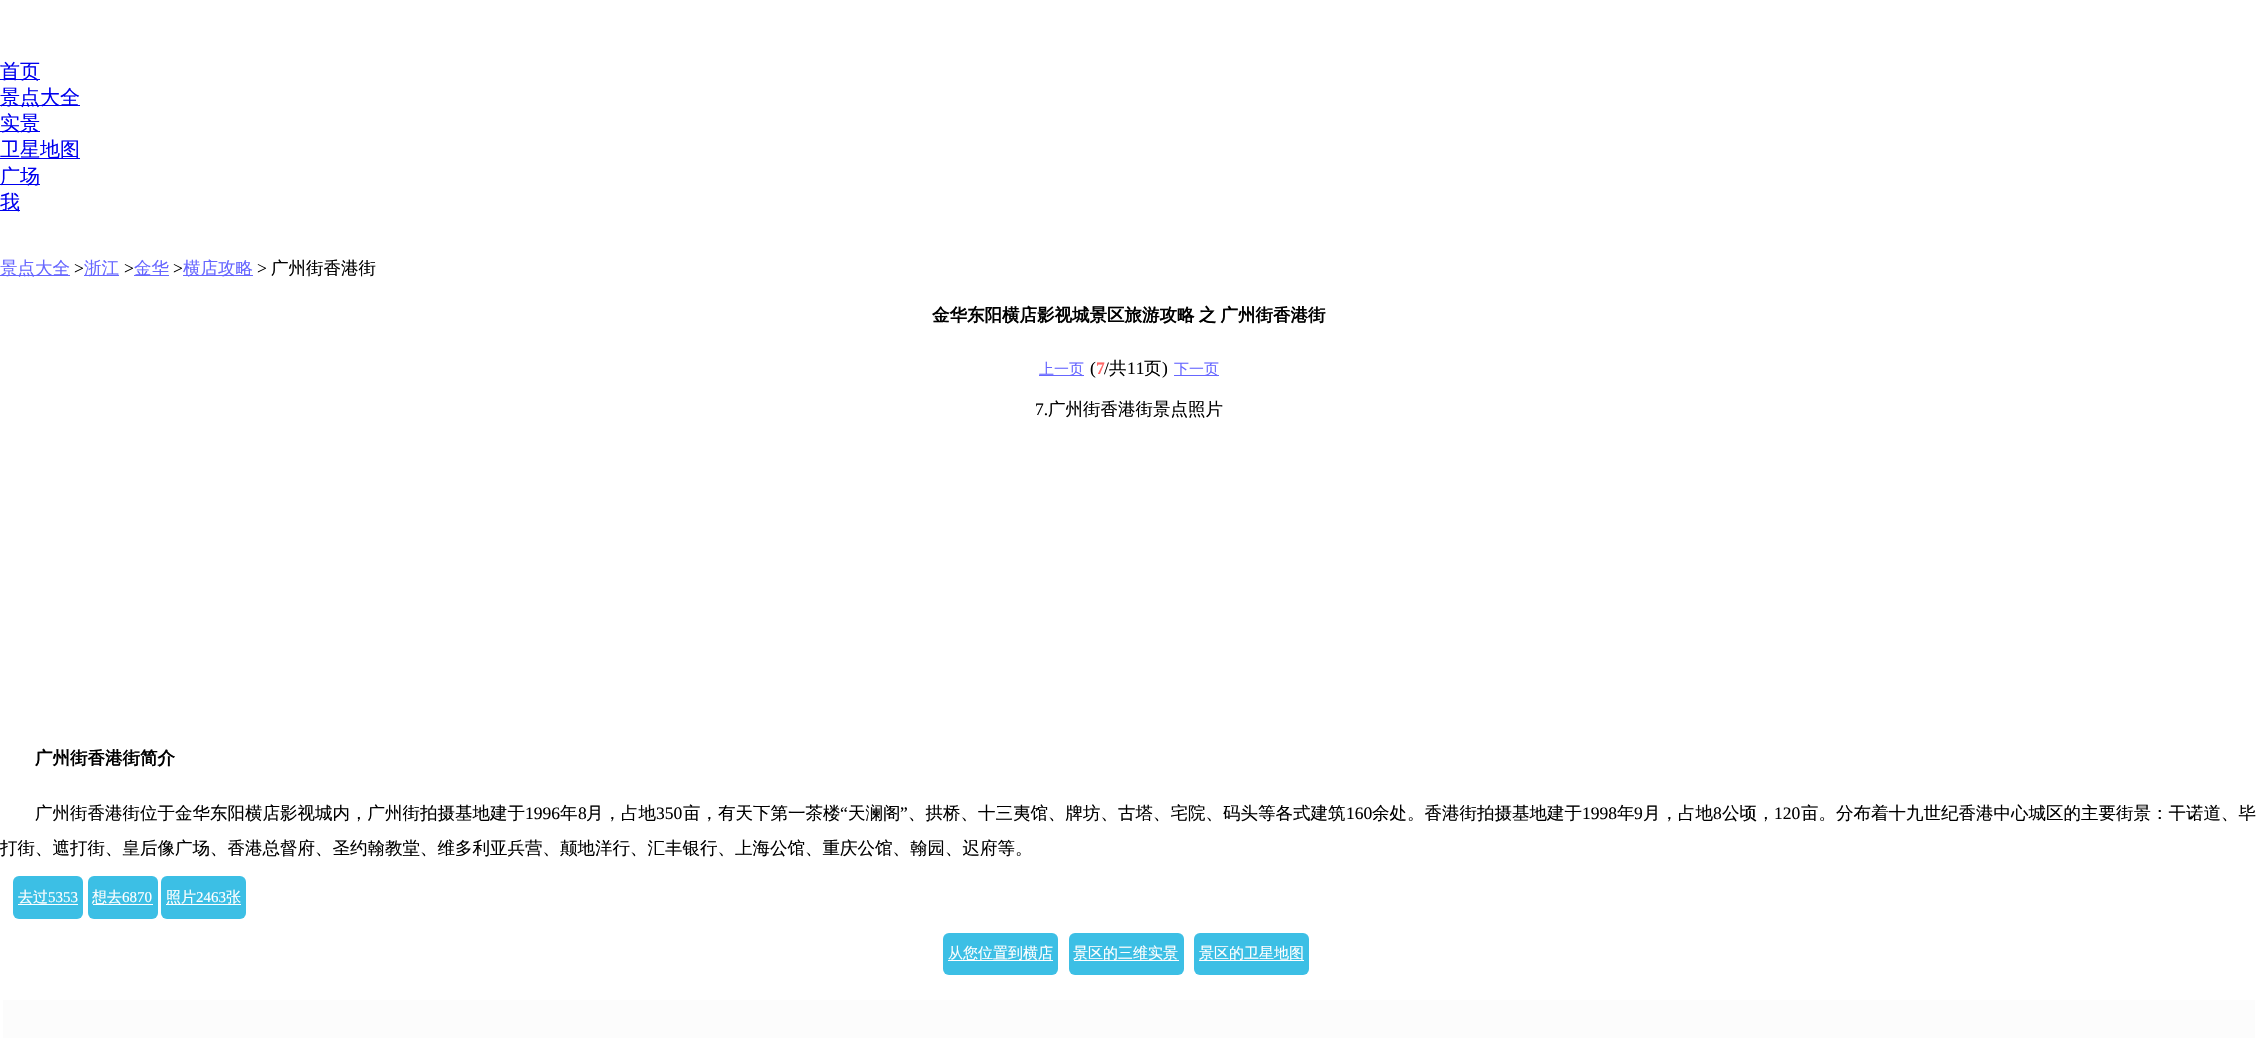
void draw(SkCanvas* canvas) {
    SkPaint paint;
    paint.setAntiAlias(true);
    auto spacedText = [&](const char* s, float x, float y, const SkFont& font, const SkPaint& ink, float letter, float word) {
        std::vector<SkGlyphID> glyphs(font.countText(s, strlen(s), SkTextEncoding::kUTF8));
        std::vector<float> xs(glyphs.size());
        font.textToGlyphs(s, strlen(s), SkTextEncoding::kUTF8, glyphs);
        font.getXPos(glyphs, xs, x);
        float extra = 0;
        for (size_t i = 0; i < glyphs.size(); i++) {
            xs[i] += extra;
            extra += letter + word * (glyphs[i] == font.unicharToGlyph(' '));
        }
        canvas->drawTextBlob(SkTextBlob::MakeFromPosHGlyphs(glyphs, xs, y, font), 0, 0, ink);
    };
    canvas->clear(0xFFFFFFFF);
    paint.setColor(0xFF0000EE);
    canvas->drawRect(SkRect::MakeXYWH(0, 79, 40, 1), paint);
    SkFont font1(fontMgr->matchFamilyStyle("WenQuanYi Zen Hei", SkFontStyle(500, SkFontStyle::kNormal_Width, SkFontStyle::kUpright_Slant)), 20);
    font1.setSubpixel(true);
    canvas->drawString("首页", 0, 78, font1, paint);
    canvas->drawRect(SkRect::MakeXYWH(0, 105, 80, 1), paint);
    canvas->drawString("景点大全", 0, 104, font1, paint);
    canvas->drawRect(SkRect::MakeXYWH(0, 131, 40, 1), paint);
    canvas->drawString("实景", 0, 130, font1, paint);
    canvas->drawRect(SkRect::MakeXYWH(0, 158, 80, 1), paint);
    canvas->drawString("卫星地图", 0, 156, font1, paint);
    canvas->drawRect(SkRect::MakeXYWH(0, 184, 40, 1), paint);
    canvas->drawString("广场", 0, 183, font1, paint);
    canvas->drawRect(SkRect::MakeXYWH(0, 210, 20, 1), paint);
    canvas->drawString("我", 0, 209, font1, paint);
    paint.setColor(0xFF6666FF);
    canvas->drawRect(SkRect::MakeXYWH(0, 275, 70, 1), paint);
    SkFont font2(fontMgr->matchFamilyStyle("WenQuanYi Zen Hei", SkFontStyle(500, SkFontStyle::kNormal_Width, SkFontStyle::kUpright_Slant)), 17.5f);
    font2.setSubpixel(true);
    canvas->drawString("景点大全", 0, 274, font2, paint);
    SkFont font3(fontMgr->matchFamilyStyle("Liberation Serif", SkFontStyle::Normal()), 17.5f);
    font3.setSubpixel(true);
    paint.setColor(0xFF000000);
    canvas->drawString(">", 74, 274, font3, paint);
    paint.setColor(0xFF6666FF);
    canvas->drawRect(SkRect::MakeXYWH(84, 275, 35, 1), paint);
    canvas->drawString("浙江", 84, 274, font2, paint);
    paint.setColor(0xFF000000);
    canvas->drawString(">", 124, 274, font3, paint);
    paint.setColor(0xFF6666FF);
    canvas->drawRect(SkRect::MakeXYWH(134, 275, 35, 1), paint);
    canvas->drawString("金华", 134, 274, font2, paint);
    paint.setColor(0xFF000000);
    canvas->drawString(">", 173, 274, font3, paint);
    paint.setColor(0xFF6666FF);
    canvas->drawRect(SkRect::MakeXYWH(183, 275, 70, 1), paint);
    canvas->drawString("横店攻略", 183, 274, font2, paint);
    paint.setColor(0xFF000000);
    canvas->drawString(">", 257, 274, font3, paint);
    canvas->drawString("广州街香港街", 271, 274, font2, paint);
    SkFont font4(fontMgr->matchFamilyStyle("WenQuanYi Zen Hei", SkFontStyle::Bold()), 17.5f);
    font4.setSubpixel(true);
    spacedText("金华东阳横店影视城景区旅游攻略 之 广州街香港街", 932, 321, font4, paint, 0, -1);
    paint.setColor(0xFF6666FF);
    canvas->drawRect(SkRect::MakeXYWH(1039, 375, 45, 1), paint);
    SkFont font5(fontMgr->matchFamilyStyle("WenQuanYi Zen Hei", SkFontStyle(500, SkFontStyle::kNormal_Width, SkFontStyle::kUpright_Slant)), 15);
    font5.setSubpixel(true);
    canvas->drawString("上一页", 1039, 374, font5, paint);
    paint.setColor(0xFF000000);
    canvas->drawString("(", 1090, 374, font3, paint);
    SkFont font6(fontMgr->matchFamilyStyle("Liberation Serif", SkFontStyle::Bold()), 17.5f);
    font6.setSubpixel(true);
    paint.setColor(0xFFFF6666);
    canvas->drawString("7", 1096, 374, font6, paint);
    paint.setColor(0xFF000000);
    canvas->drawString("/", 1104, 374, font3, paint);
    canvas->drawString("共", 1109, 374, font2, paint);
    canvas->drawString("11", 1127, 374, font3, paint);
    canvas->drawString("页", 1144, 374, font2, paint);
    canvas->drawString(")", 1162, 374, font3, paint);
    paint.setColor(0xFF6666FF);
    canvas->drawRect(SkRect::MakeXYWH(1174, 375, 45, 1), paint);
    canvas->drawString("下一页", 1174, 374, font5, paint);
    paint.setColor(0xFF000000);
    canvas->drawString("7.", 1035, 415, font3, paint);
    canvas->drawString("广州街香港街景点照片", 1048, 415, font2, paint);
    canvas->drawString("广州街香港街简介", 35, 764, font4, paint);
    canvas->drawString("广州街香港街位于金华东阳横店影视城内，广州街拍摄基地建于", 35, 819, font2, paint);
    canvas->drawString("1996", 525, 819, font3, paint);
    canvas->drawString("年", 560, 819, font2, paint);
    canvas->drawString("8", 578, 819, font3, paint);
    canvas->drawString("月，占地", 586, 819, font2, paint);
    canvas->drawString("350", 656, 819, font3, paint);
    canvas->drawString("亩，有天下第一茶楼", 683, 819, font2, paint);
    canvas->drawString("“", 840, 819, font3, paint);
    canvas->drawString("天澜阁", 848, 819, font2, paint);
    canvas->drawString("”", 900, 819, font3, paint);
    canvas->drawString("、拱桥、十三夷馆、牌坊、古塔、宅院、码头等各式建筑", 908, 819, font2, paint);
    canvas->drawString("160", 1346, 819, font3, paint);
    canvas->drawString("余处。香港街拍摄基地建于", 1372, 819, font2, paint);
    canvas->drawString("1998", 1582, 819, font3, paint);
    canvas->drawString("年", 1617, 819, font2, paint);
    canvas->drawString("9", 1634, 819, font3, paint);
    canvas->drawString("月，占地", 1643, 819, font2, paint);
    canvas->drawString("8", 1713, 819, font3, paint);
    canvas->drawString("公顷，", 1722, 819, font2, paint);
    canvas->drawString("120", 1774, 819, font3, paint);
    canvas->drawString("亩。分布着十九世纪香港中心城区的主要街景：干诺道、毕", 1801, 819, font2, paint);
    canvas->drawString("打街、遮打街、皇后像广场、香港总督府、圣约翰教堂、维多利亚兵营、颠地洋行、汇丰银行、上海公馆、重庆公馆、翰园、迟府等。", 0, 854, font2, paint);
    paint.setColor(0xFF3CBFE5);
    canvas->drawRoundRect(SkRect::MakeXYWH(13, 876, 70, 43), 6, 6, paint);
    paint.setColor(0xFFFFFFFF);
    canvas->drawRect(SkRect::MakeXYWH(18, 904, 60, 1), paint);
    canvas->drawString("去过", 18, 902, font5, paint);
    SkFont font7(fontMgr->matchFamilyStyle("Liberation Serif", SkFontStyle::Normal()), 15);
    font7.setSubpixel(true);
    canvas->drawString("5353", 48, 902, font7, paint);
    paint.setColor(0xFF3CBFE5);
    canvas->drawRoundRect(SkRect::MakeXYWH(88, 876, 70, 43), 6, 6, paint);
    paint.setColor(0xFFFFFFFF);
    canvas->drawRect(SkRect::MakeXYWH(93, 904, 60, 1), paint);
    canvas->drawString("想去", 92, 902, font5, paint);
    canvas->drawString("6870", 122, 902, font7, paint);
    paint.setColor(0xFF3CBFE5);
    canvas->drawRoundRect(SkRect::MakeXYWH(161, 876, 85, 43), 6, 6, paint);
    paint.setColor(0xFFFFFFFF);
    canvas->drawRect(SkRect::MakeXYWH(166, 904, 75, 1), paint);
    canvas->drawString("照片", 166, 902, font5, paint);
    canvas->drawString("2463", 196, 902, font7, paint);
    canvas->drawString("张", 226, 902, font5, paint);
    paint.setColor(0xFF3CBFE5);
    canvas->drawRoundRect(SkRect::MakeXYWH(943, 933, 115, 42), 6, 6, paint);
    paint.setColor(0xFFFFFFFF);
    canvas->drawRect(SkRect::MakeXYWH(948, 960, 105, 1), paint);
    canvas->drawString("从您位置到横店", 948, 958, font5, paint);
    paint.setColor(0xFF3CBFE5);
    canvas->drawRoundRect(SkRect::MakeXYWH(1069, 933, 115, 42), 6, 6, paint);
    paint.setColor(0xFFFFFFFF);
    canvas->drawString("景区的三维实景", 1073, 958, font5, paint);
    canvas->drawRect(SkRect::MakeXYWH(1074, 960, 105, 1), paint);
    paint.setColor(0xFF3CBFE5);
    canvas->drawRoundRect(SkRect::MakeXYWH(1194, 933, 115, 42), 6, 6, paint);
    paint.setColor(0xFFFFFFFF);
    canvas->drawString("景区的卫星地图", 1199, 958, font5, paint);
    canvas->drawRect(SkRect::MakeXYWH(1199, 960, 105, 1), paint);
    paint.setColor(0xFFFCFCFC);
    canvas->drawRect(SkRect::MakeXYWH(3, 1000, 2252, 38), paint);
}
